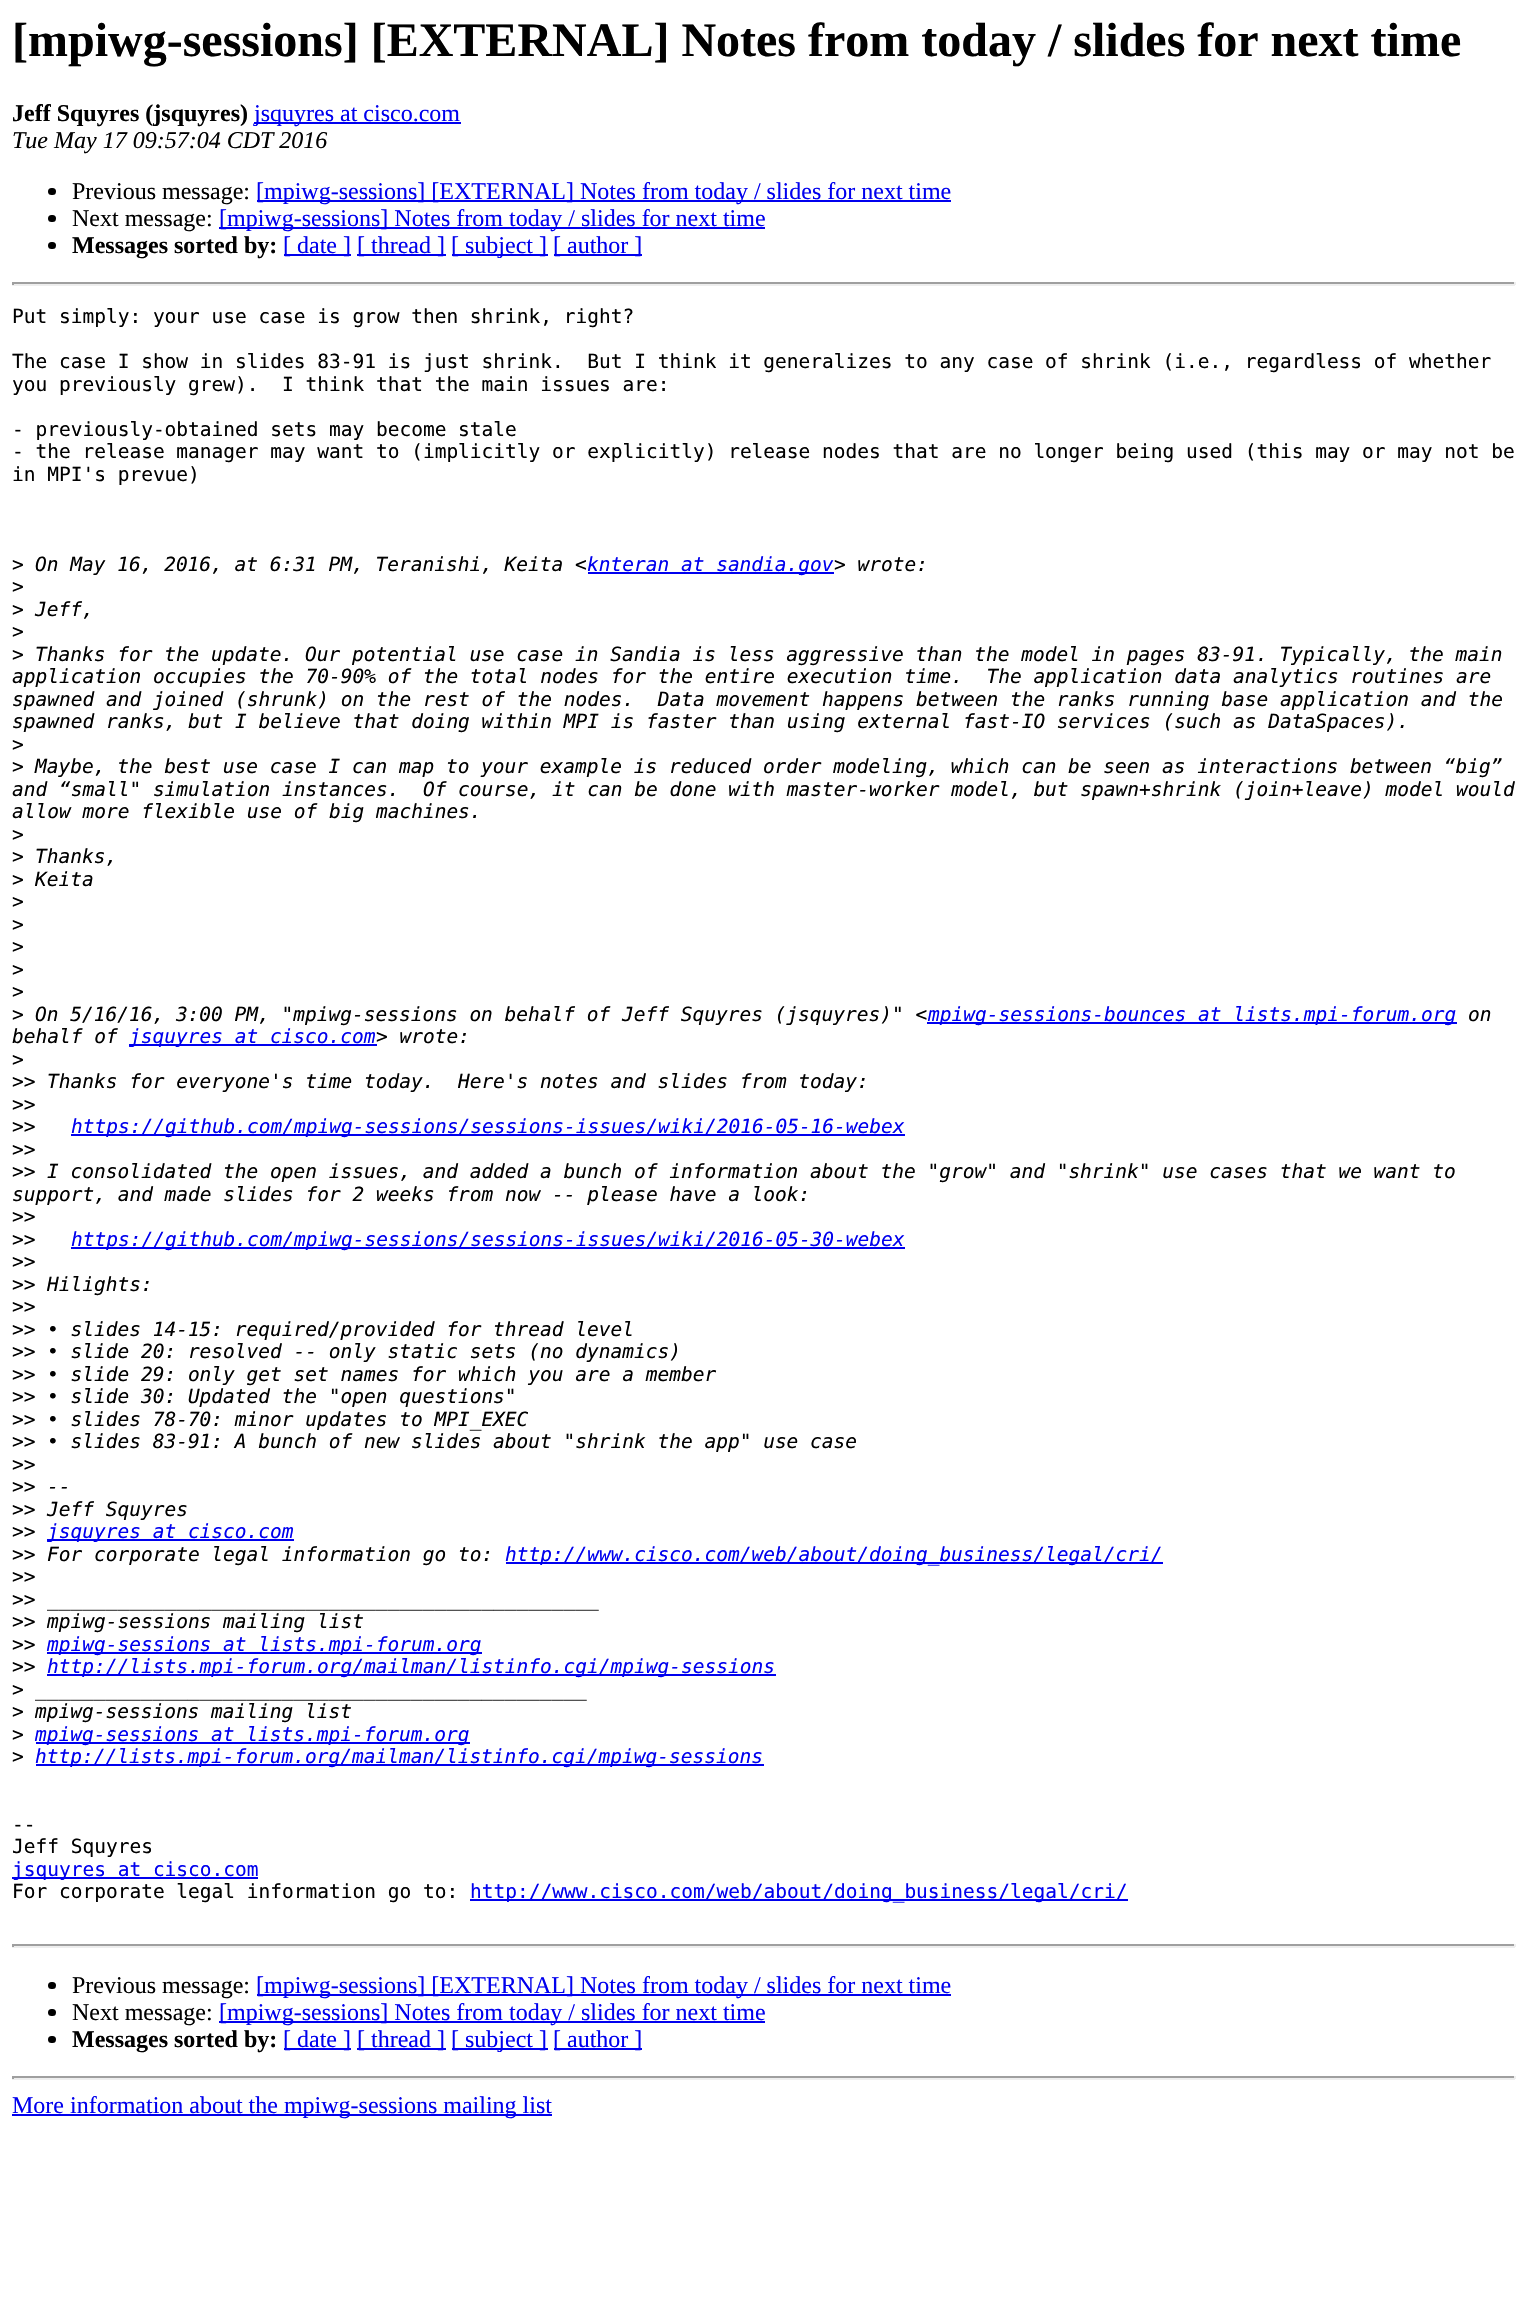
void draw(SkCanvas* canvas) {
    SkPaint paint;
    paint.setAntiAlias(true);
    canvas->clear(0xFFFFFFFF);
    SkFont font1(fontMgr->matchFamilyStyle("Liberation Serif", SkFontStyle::Bold()), 48);
    font1.setSubpixel(true);
    paint.setColor(0xFF000000);
    canvas->drawString("[mpiwg-sessions] [EXTERNAL] Notes from today / slides for next time", 12, 56, font1, paint);
    SkFont font2(fontMgr->matchFamilyStyle("Liberation Serif", SkFontStyle::Bold()), 24);
    font2.setSubpixel(true);
    canvas->drawString("Jeff Squyres (jsquyres)", 12, 121, font2, paint);
    paint.setColor(0xFF0000EE);
    canvas->drawRect(SkRect::MakeXYWH(254, 122, 207, 2), paint);
    SkFont font3(fontMgr->matchFamilyStyle("Liberation Serif", SkFontStyle::Normal()), 24);
    font3.setSubpixel(true);
    canvas->drawString("jsquyres at cisco.com", 254, 121, font3, paint);
    SkFont font4(fontMgr->matchFamilyStyle("Liberation Serif", SkFontStyle::Italic()), 24);
    font4.setSubpixel(true);
    paint.setColor(0xFF000000);
    canvas->drawString("Tue May 17 09:57:04 CDT 2016", 12, 148, font4, paint);
    canvas->drawRoundRect(SkRect::MakeXYWH(48, 188, 8, 7), 3.5f, 3.5f, paint);
    canvas->drawString("Previous message:", 72, 199, font3, paint);
    paint.setColor(0xFF0000EE);
    canvas->drawRect(SkRect::MakeXYWH(257, 200, 694, 2), paint);
    canvas->drawString("[mpiwg-sessions] [EXTERNAL] Notes from today / slides for next time", 256, 199, font3, paint);
    paint.setColor(0xFF000000);
    canvas->drawRoundRect(SkRect::MakeXYWH(48, 215, 8, 7), 3.5f, 3.5f, paint);
    canvas->drawString("Next message:", 72, 226, font3, paint);
    paint.setColor(0xFF0000EE);
    canvas->drawRect(SkRect::MakeXYWH(219, 227, 546, 2), paint);
    canvas->drawString("[mpiwg-sessions] Notes from today / slides for next time", 219, 226, font3, paint);
    paint.setColor(0xFF000000);
    canvas->drawRoundRect(SkRect::MakeXYWH(48, 242, 8, 7), 3.5f, 3.5f, paint);
    canvas->drawString("Messages sorted by:", 72, 253, font2, paint);
    paint.setColor(0xFF0000EE);
    canvas->drawRect(SkRect::MakeXYWH(284, 254, 67, 2), paint);
    canvas->drawString("[ date ]", 283, 253, font3, paint);
    canvas->drawRect(SkRect::MakeXYWH(357, 254, 89, 2), paint);
    canvas->drawString("[ thread ]", 357, 253, font3, paint);
    canvas->drawRect(SkRect::MakeXYWH(452, 254, 96, 2), paint);
    canvas->drawString("[ subject ]", 451, 253, font3, paint);
    canvas->drawRect(SkRect::MakeXYWH(554, 254, 88, 2), paint);
    canvas->drawString("[ author ]", 553, 253, font3, paint);
    paint.setColor(0xFF9F9F9F);
    canvas->drawRect(SkRect::MakeXYWH(12, 282, 1503, 2), paint);
    paint.setColor(0xFFEEEEEE);
    canvas->drawRect(SkRect::MakeXYWH(1514, 282, 2, 3), paint);
    canvas->drawRect(SkRect::MakeXYWH(12, 284, 1503, 2), paint);
    paint.setColor(0xFF9F9F9F);
    canvas->drawRect(SkRect::MakeXYWH(12, 282, 2, 3), paint);
    SkFont font5(fontMgr->matchFamilyStyle("DejaVu Sans Mono", SkFontStyle::Normal()), 19.5f);
    font5.setSubpixel(true);
    paint.setColor(0xFF000000);
    canvas->drawString("Put simply: your use case is grow then shrink, right?", 12, 323, font5, paint);
    canvas->drawString("The case I show in slides 83-91 is just shrink.  But I think it generalizes to any case of shrink (i.e., regardless of whether", 12, 368, font5, paint);
    canvas->drawString("you previously grew).  I think that the main issues are:", 12, 391, font5, paint);
    canvas->drawString("- previously-obtained sets may become stale", 12, 436, font5, paint);
    canvas->drawString("- the release manager may want to (implicitly or explicitly) release nodes that are no longer being used (this may or may not be", 12, 458, font5, paint);
    canvas->drawString("in MPI's prevue)", 12, 481, font5, paint);
    canvas->drawString(">", 12, 571, font5, paint);
    SkFont font6(fontMgr->matchFamilyStyle("DejaVu Sans Mono", SkFontStyle::Italic()), 19.5f);
    font6.setSubpixel(true);
    canvas->drawString("On May 16, 2016, at 6:31 PM, Teranishi, Keita <", 35, 571, font6, paint);
    paint.setColor(0xFF0000EE);
    canvas->drawRect(SkRect::MakeXYWH(588, 572, 246, 2), paint);
    canvas->drawString("knteran at sandia.gov", 587, 571, font6, paint);
    paint.setColor(0xFF000000);
    canvas->drawString("> wrote:", 834, 571, font6, paint);
    canvas->drawString(">", 12, 593, font5, paint);
    canvas->drawString(">", 12, 616, font5, paint);
    canvas->drawString("Jeff,", 35, 616, font6, paint);
    canvas->drawString(">", 12, 638, font5, paint);
    canvas->drawString(">", 12, 661, font5, paint);
    canvas->drawString("Thanks for the update. Our potential use case in Sandia is less aggressive than the model in pages 83-91. Typically, the main", 35, 661, font6, paint);
    canvas->drawString("application occupies the 70-90% of the total nodes for the entire execution time.  The application data analytics routines are", 12, 683, font6, paint);
    canvas->drawString("spawned and joined (shrunk) on the rest of the nodes.  Data movement happens between the ranks running base application and the", 12, 706, font6, paint);
    canvas->drawString("spawned ranks, but I believe that doing within MPI is faster than using external fast-IO services (such as DataSpaces).", 12, 728, font6, paint);
    canvas->drawString(">", 12, 751, font5, paint);
    canvas->drawString(">", 12, 773, font5, paint);
    canvas->drawString("Maybe, the best use case I can map to your example is reduced order modeling, which can be seen as interactions between “big”", 35, 773, font6, paint);
    canvas->drawString("and “small\" simulation instances.  Of course, it can be done with master-worker model, but spawn+shrink (join+leave) model would", 12, 796, font6, paint);
    canvas->drawString("allow more flexible use of big machines.", 12, 818, font6, paint);
    canvas->drawString(">", 12, 841, font5, paint);
    canvas->drawString(">", 12, 863, font5, paint);
    canvas->drawString("Thanks,", 35, 863, font6, paint);
    canvas->drawString(">", 12, 886, font5, paint);
    canvas->drawString("Keita", 35, 886, font6, paint);
    canvas->drawString(">", 12, 908, font5, paint);
    canvas->drawString(">", 12, 931, font5, paint);
    canvas->drawString(">", 12, 953, font5, paint);
    canvas->drawString(">", 12, 976, font5, paint);
    canvas->drawString(">", 12, 998, font5, paint);
    canvas->drawString(">", 12, 1021, font5, paint);
    canvas->drawString("On 5/16/16, 3:00 PM, \"mpiwg-sessions on behalf of Jeff Squyres (jsquyres)\" <", 35, 1021, font6, paint);
    paint.setColor(0xFF0000EE);
    canvas->drawRect(SkRect::MakeXYWH(927, 1022, 530, 2), paint);
    canvas->drawString("mpiwg-sessions-bounces at lists.mpi-forum.org", 928, 1021, font6, paint);
    paint.setColor(0xFF000000);
    canvas->drawString("on", 1468, 1021, font6, paint);
    canvas->drawString("behalf of", 12, 1043, font6, paint);
    paint.setColor(0xFF0000EE);
    canvas->drawRect(SkRect::MakeXYWH(129, 1044, 248, 2), paint);
    canvas->drawString("jsquyres at cisco.com", 129, 1043, font6, paint);
    paint.setColor(0xFF000000);
    canvas->drawString("> wrote:", 376, 1043, font6, paint);
    canvas->drawString(">", 12, 1066, font5, paint);
    canvas->drawString(">>", 12, 1088, font5, paint);
    canvas->drawString("Thanks for everyone's time today.  Here's notes and slides from today:", 47, 1088, font6, paint);
    canvas->drawString(">>", 12, 1111, font5, paint);
    canvas->drawString(">>", 12, 1133, font5, paint);
    paint.setColor(0xFF0000EE);
    canvas->drawRect(SkRect::MakeXYWH(71, 1134, 834, 2), paint);
    canvas->drawString("https://github.com/mpiwg-sessions/sessions-issues/wiki/2016-05-16-webex", 71, 1133, font6, paint);
    paint.setColor(0xFF000000);
    canvas->drawString(">>", 12, 1156, font5, paint);
    canvas->drawString(">>", 12, 1178, font5, paint);
    canvas->drawString("I consolidated the open issues, and added a bunch of information about the \"grow\" and \"shrink\" use cases that we want to", 47, 1178, font6, paint);
    canvas->drawString("support, and made slides for 2 weeks from now -- please have a look:", 12, 1201, font6, paint);
    canvas->drawString(">>", 12, 1223, font5, paint);
    canvas->drawString(">>", 12, 1246, font5, paint);
    paint.setColor(0xFF0000EE);
    canvas->drawRect(SkRect::MakeXYWH(71, 1247, 834, 2), paint);
    canvas->drawString("https://github.com/mpiwg-sessions/sessions-issues/wiki/2016-05-30-webex", 71, 1246, font6, paint);
    paint.setColor(0xFF000000);
    canvas->drawString(">>", 12, 1268, font5, paint);
    canvas->drawString(">>", 12, 1291, font5, paint);
    canvas->drawString("Hilights:", 47, 1291, font6, paint);
    canvas->drawString(">>", 12, 1313, font5, paint);
    canvas->drawString(">>", 12, 1336, font5, paint);
    canvas->drawString("• slides 14-15: required/provided for thread level", 47, 1336, font6, paint);
    canvas->drawString(">>", 12, 1358, font5, paint);
    canvas->drawString("• slide 20: resolved -- only static sets (no dynamics)", 47, 1358, font6, paint);
    canvas->drawString(">>", 12, 1381, font5, paint);
    canvas->drawString("• slide 29: only get set names for which you are a member", 47, 1381, font6, paint);
    canvas->drawString(">>", 12, 1403, font5, paint);
    canvas->drawString("• slide 30: Updated the \"open questions\"", 47, 1403, font6, paint);
    canvas->drawString(">>", 12, 1426, font5, paint);
    canvas->drawString("• slides 78-70: minor updates to MPI_EXEC", 47, 1426, font6, paint);
    canvas->drawString(">>", 12, 1448, font5, paint);
    canvas->drawString("• slides 83-91: A bunch of new slides about \"shrink the app\" use case", 47, 1448, font6, paint);
    canvas->drawString(">>", 12, 1471, font5, paint);
    canvas->drawString(">>", 12, 1493, font5, paint);
    canvas->drawString("--", 47, 1493, font6, paint);
    canvas->drawString(">>", 12, 1516, font5, paint);
    canvas->drawString("Jeff Squyres", 47, 1516, font6, paint);
    canvas->drawString(">>", 12, 1538, font5, paint);
    paint.setColor(0xFF0000EE);
    canvas->drawRect(SkRect::MakeXYWH(47, 1539, 247, 2), paint);
    canvas->drawString("jsquyres at cisco.com", 47, 1538, font6, paint);
    paint.setColor(0xFF000000);
    canvas->drawString(">>", 12, 1561, font5, paint);
    canvas->drawString("For corporate legal information go to:", 47, 1561, font6, paint);
    paint.setColor(0xFF0000EE);
    canvas->drawRect(SkRect::MakeXYWH(506, 1562, 657, 2), paint);
    canvas->drawString("http://www.cisco.com/web/about/doing_business/legal/cri/", 505, 1561, font6, paint);
    paint.setColor(0xFF000000);
    canvas->drawString(">>", 12, 1583, font5, paint);
    canvas->drawString(">>", 12, 1606, font5, paint);
    canvas->drawString("_______________________________________________", 47, 1606, font6, paint);
    canvas->drawString(">>", 12, 1628, font5, paint);
    canvas->drawString("mpiwg-sessions mailing list", 47, 1628, font6, paint);
    canvas->drawString(">>", 12, 1651, font5, paint);
    paint.setColor(0xFF0000EE);
    canvas->drawRect(SkRect::MakeXYWH(47, 1652, 435, 2), paint);
    canvas->drawString("mpiwg-sessions at lists.mpi-forum.org", 47, 1651, font6, paint);
    paint.setColor(0xFF000000);
    canvas->drawString(">>", 12, 1673, font5, paint);
    paint.setColor(0xFF0000EE);
    canvas->drawRect(SkRect::MakeXYWH(47, 1674, 729, 2), paint);
    canvas->drawString("http://lists.mpi-forum.org/mailman/listinfo.cgi/mpiwg-sessions", 47, 1673, font6, paint);
    paint.setColor(0xFF000000);
    canvas->drawString(">", 12, 1696, font5, paint);
    canvas->drawString("_______________________________________________", 35, 1696, font6, paint);
    canvas->drawString(">", 12, 1718, font5, paint);
    canvas->drawString("mpiwg-sessions mailing list", 35, 1718, font6, paint);
    canvas->drawString(">", 12, 1741, font5, paint);
    paint.setColor(0xFF0000EE);
    canvas->drawRect(SkRect::MakeXYWH(36, 1742, 434, 2), paint);
    canvas->drawString("mpiwg-sessions at lists.mpi-forum.org", 35, 1741, font6, paint);
    paint.setColor(0xFF000000);
    canvas->drawString(">", 12, 1763, font5, paint);
    paint.setColor(0xFF0000EE);
    canvas->drawRect(SkRect::MakeXYWH(36, 1764, 728, 2), paint);
    canvas->drawString("http://lists.mpi-forum.org/mailman/listinfo.cgi/mpiwg-sessions", 35, 1763, font6, paint);
    paint.setColor(0xFF000000);
    canvas->drawString("--", 12, 1831, font5, paint);
    canvas->drawString("Jeff Squyres", 12, 1853, font5, paint);
    paint.setColor(0xFF0000EE);
    canvas->drawRect(SkRect::MakeXYWH(12, 1877, 246, 2), paint);
    canvas->drawString("jsquyres at cisco.com", 12, 1876, font5, paint);
    paint.setColor(0xFF000000);
    canvas->drawString("For corporate legal information go to:", 12, 1898, font5, paint);
    paint.setColor(0xFF0000EE);
    canvas->drawRect(SkRect::MakeXYWH(470, 1899, 658, 2), paint);
    canvas->drawString("http://www.cisco.com/web/about/doing_business/legal/cri/", 470, 1898, font5, paint);
    paint.setColor(0xFF9F9F9F);
    canvas->drawRect(SkRect::MakeXYWH(12, 1944, 1503, 2), paint);
    paint.setColor(0xFFEEEEEE);
    canvas->drawRect(SkRect::MakeXYWH(1514, 1944, 2, 3), paint);
    canvas->drawRect(SkRect::MakeXYWH(12, 1946, 1503, 2), paint);
    paint.setColor(0xFF9F9F9F);
    canvas->drawRect(SkRect::MakeXYWH(12, 1944, 2, 3), paint);
    paint.setColor(0xFF000000);
    canvas->drawRoundRect(SkRect::MakeXYWH(48, 1982, 8, 7), 3.5f, 3.5f, paint);
    canvas->drawString("Previous message:", 72, 1993, font3, paint);
    paint.setColor(0xFF0000EE);
    canvas->drawRect(SkRect::MakeXYWH(257, 1994, 694, 2), paint);
    canvas->drawString("[mpiwg-sessions] [EXTERNAL] Notes from today / slides for next time", 256, 1993, font3, paint);
    paint.setColor(0xFF000000);
    canvas->drawRoundRect(SkRect::MakeXYWH(48, 2009, 8, 7), 3.5f, 3.5f, paint);
    canvas->drawString("Next message:", 72, 2020, font3, paint);
    paint.setColor(0xFF0000EE);
    canvas->drawRect(SkRect::MakeXYWH(219, 2021, 546, 2), paint);
    canvas->drawString("[mpiwg-sessions] Notes from today / slides for next time", 219, 2020, font3, paint);
    paint.setColor(0xFF000000);
    canvas->drawRoundRect(SkRect::MakeXYWH(48, 2036, 8, 7), 3.5f, 3.5f, paint);
    canvas->drawString("Messages sorted by:", 72, 2047, font2, paint);
    paint.setColor(0xFF0000EE);
    canvas->drawRect(SkRect::MakeXYWH(284, 2048, 67, 2), paint);
    canvas->drawString("[ date ]", 283, 2047, font3, paint);
    canvas->drawRect(SkRect::MakeXYWH(357, 2048, 89, 2), paint);
    canvas->drawString("[ thread ]", 357, 2047, font3, paint);
    canvas->drawRect(SkRect::MakeXYWH(452, 2048, 96, 2), paint);
    canvas->drawString("[ subject ]", 451, 2047, font3, paint);
    canvas->drawRect(SkRect::MakeXYWH(554, 2048, 88, 2), paint);
    canvas->drawString("[ author ]", 553, 2047, font3, paint);
    paint.setColor(0xFF9F9F9F);
    canvas->drawRect(SkRect::MakeXYWH(12, 2076, 1503, 2), paint);
    paint.setColor(0xFFEEEEEE);
    canvas->drawRect(SkRect::MakeXYWH(1514, 2076, 2, 3), paint);
    canvas->drawRect(SkRect::MakeXYWH(12, 2078, 1503, 2), paint);
    paint.setColor(0xFF9F9F9F);
    canvas->drawRect(SkRect::MakeXYWH(12, 2076, 2, 3), paint);
    paint.setColor(0xFF0000EE);
    canvas->drawRect(SkRect::MakeXYWH(12, 2114, 540, 2), paint);
    canvas->drawString("More information about the mpiwg-sessions mailing list", 12, 2113, font3, paint);
}
